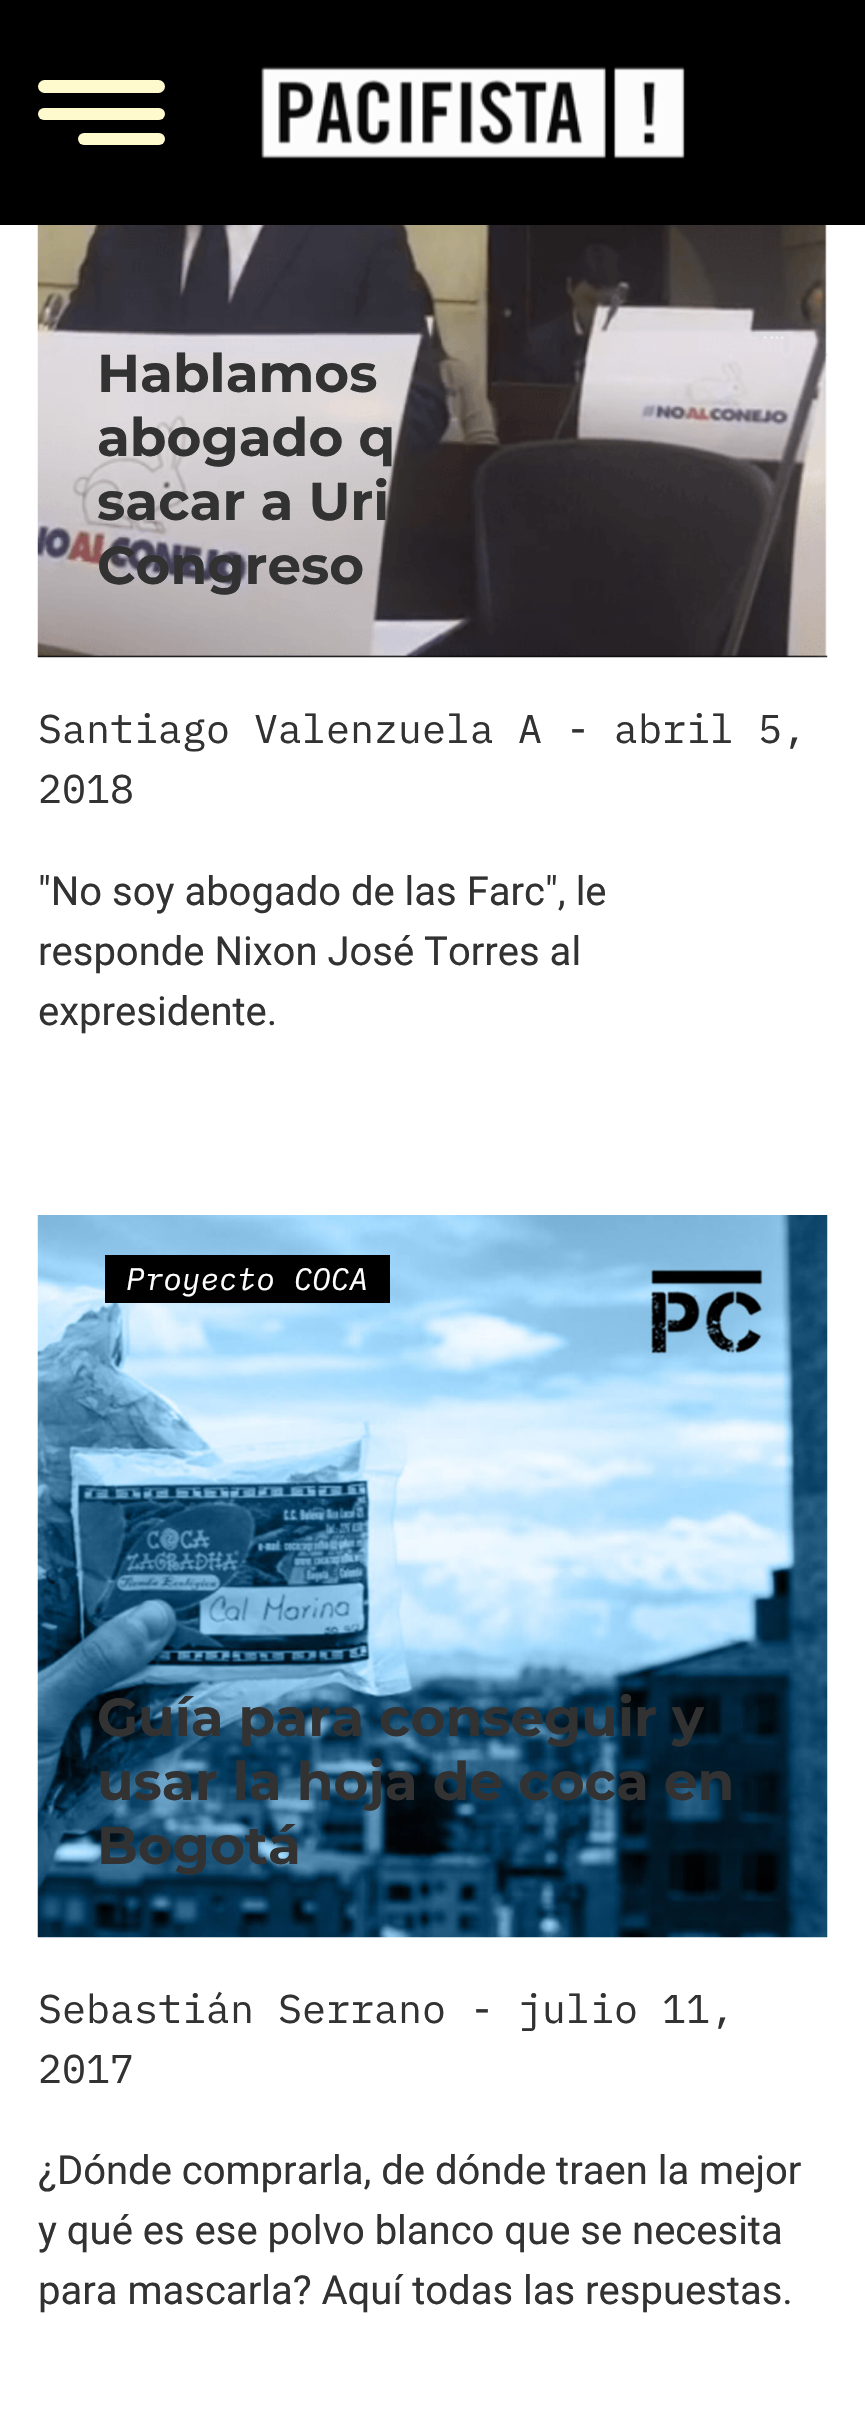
void draw(SkCanvas* canvas) {
    SkPaint paint;
    paint.setAntiAlias(true);
    canvas->clear(0xFFFFFFFF);
    paint.setColor(0xFF000000);
    canvas->drawRect(SkRect::MakeXYWH(0, 0, 865, 225), paint);
    paint.setColor(0xFFFFFACE);
    canvas->drawRoundRect(SkRect::MakeXYWH(38, 80, 127, 13), 6.5f, 6.5f, paint);
    canvas->drawRoundRect(SkRect::MakeXYWH(38, 108, 127, 12), 6, 6, paint);
    canvas->drawRoundRect(SkRect::MakeXYWH(78, 133, 87, 12), 6, 6, paint);
    canvas->drawImageRect(SkImages::DeferredFromEncodedData(SkData::MakeFromFileName("img1.png")), SkRect::MakeXYWH(261, 66, 424, 93), SkSamplingOptions());
    canvas->drawImageRect(SkImages::DeferredFromEncodedData(SkData::MakeFromFileName("img2.png")), SkRect::MakeXYWH(37, 225, 791, 433), SkSamplingOptions());
    SkFont font1(fontMgr->matchFamilyStyle("Montserrat", SkFontStyle::Bold()), 53.25f);
    font1.setSubpixel(true);
    paint.setColor(0xFF323232);
    canvas->drawString("Hablamos", 97, 392, font1, paint);
    canvas->drawString("abogado q", 97, 456, font1, paint);
    canvas->drawString("sacar a Uri", 97, 520, font1, paint);
    canvas->drawString("Congreso", 97, 584, font1, paint);
    SkFont font2(fontMgr->matchFamilyStyle("IBM Plex Mono", SkFontStyle::Normal()), 40);
    font2.setSubpixel(true);
    canvas->drawString("Santiago Valenzuela A - abril 5,", 38, 743, font2, paint);
    canvas->drawString("2018", 38, 803, font2, paint);
    SkFont font3(fontMgr->matchFamilyStyle("Roboto", SkFontStyle::Normal()), 40);
    font3.setSubpixel(true);
    canvas->drawString("\"No soy abogado de las Farc\", le", 38, 905, font3, paint);
    canvas->drawString("responde Nixon José Torres al", 38, 965, font3, paint);
    canvas->drawString("expresidente.", 38, 1025, font3, paint);
    canvas->drawImageRect(SkImages::DeferredFromEncodedData(SkData::MakeFromFileName("img3.png")), SkRect::MakeXYWH(37, 1215, 791, 723), SkSamplingOptions());
    paint.setColor(0xFF000000);
    canvas->drawRect(SkRect::MakeXYWH(105, 1255, 285, 48), paint);
    SkFont font4(fontMgr->matchFamilyStyle("IBM Plex Mono", SkFontStyle::Italic()), 31);
    font4.setSubpixel(true);
    paint.setColor(0xFFFFFFFF);
    canvas->drawString("Proyecto COCA", 126, 1290, font4, paint);
    paint.setColor(0xFF323232);
    canvas->drawString("Guía para conseguir y", 97, 1736, font1, paint);
    canvas->drawString("usar la hoja de coca en", 97, 1800, font1, paint);
    canvas->drawString("Bogotá", 97, 1864, font1, paint);
    canvas->drawString("Sebastián Serrano - julio 11,", 38, 2023, font2, paint);
    canvas->drawString("2017", 38, 2083, font2, paint);
    canvas->drawString("¿Dónde comprarla, de dónde traen la mejor", 38, 2184, font3, paint);
    canvas->drawString("y qué es ese polvo blanco que se necesita", 38, 2244, font3, paint);
    canvas->drawString("para mascarla? Aquí todas las respuestas.", 38, 2304, font3, paint);
}
